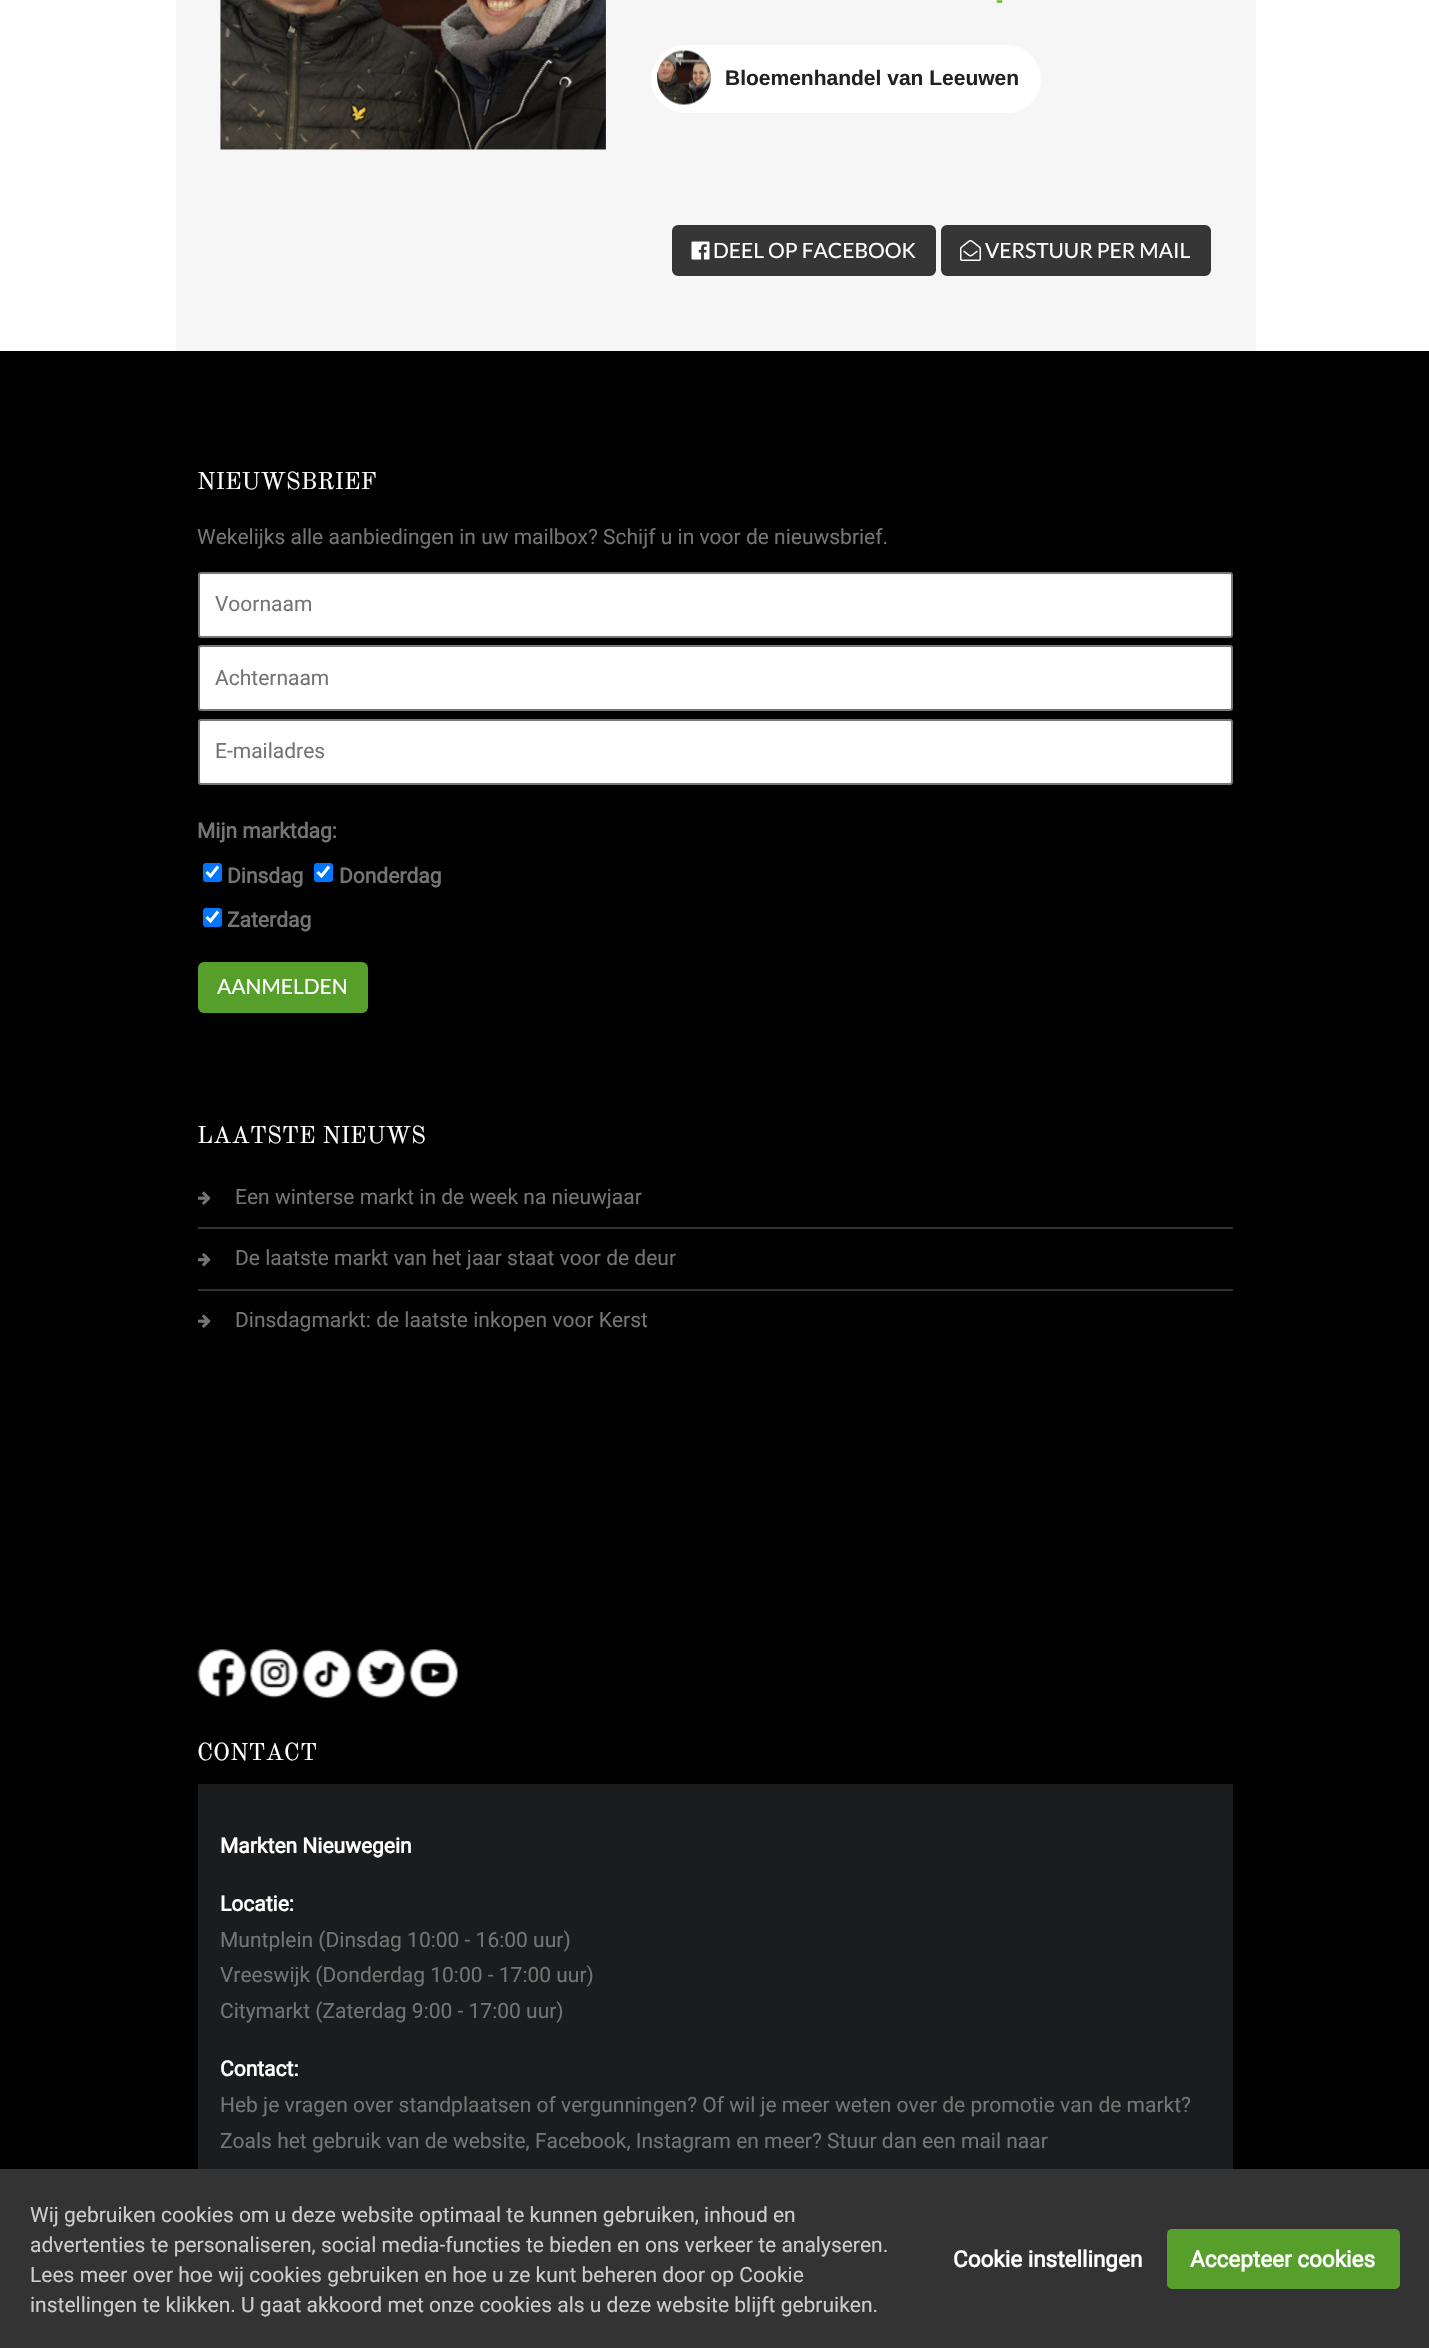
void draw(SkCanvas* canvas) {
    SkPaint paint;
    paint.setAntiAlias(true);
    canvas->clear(0xFFFFFFFF);
    paint.setColor(0xFFF6F6F6);
    canvas->drawRect(SkRect::MakeXYWH(176, 0, 1080, 351), paint);
    canvas->drawImageRect(SkImages::DeferredFromEncodedData(SkData::MakeFromFileName("img1.png")), SkRect::MakeXYWH(220, 0, 386, 150), SkSamplingOptions());
    SkFont font1(fontMgr->matchFamilyStyle("Liberation Sans", SkFontStyle::Bold()), 21);
    font1.setSubpixel(true);
    paint.setColor(0xFF72C02C);
    canvas->drawString("-", 996, 7, font1, paint);
    paint.setColor(0xFFFFFFFF);
    canvas->drawRoundRect(SkRect::MakeXYWH(651, 45, 390, 68), 34, 34, paint);
    canvas->drawImageRect(SkImages::DeferredFromEncodedData(SkData::MakeFromFileName("img2.png")), SkRect::MakeXYWH(657, 50, 54, 55), SkSamplingOptions());
    paint.setColor(0xFF222222);
    canvas->drawString("Bloemenhandel van Leeuwen", 725, 85, font1, paint);
    paint.setColor(0xFF363636);
    canvas->drawRoundRect(SkRect::MakeXYWH(673, 226, 262, 49), 5, 5, paint);
    paint.setStyle(SkPaint::kStroke_Style);
    paint.setStrokeWidth(2);
    canvas->drawRoundRect(SkRect::MakeXYWH(673, 226, 262, 49), 5, 5, paint);
    canvas->drawImageRect(SkImages::DeferredFromEncodedData(SkData::MakeFromFileName("img3.png")), SkRect::MakeXYWH(691, 241, 19, 19), SkSamplingOptions());
    SkFont font2(fontMgr->matchFamilyStyle("Lato", SkFontStyle::Normal()), 21);
    font2.setSubpixel(true);
    paint.setStyle(SkPaint::kFill_Style);
    paint.setColor(0xFFFFFFFF);
    canvas->drawString("DEEL OP FACEBOOK", 713, 258, font2, paint);
    paint.setColor(0xFF363636);
    canvas->drawRoundRect(SkRect::MakeXYWH(942, 226, 268, 49), 5, 5, paint);
    paint.setStyle(SkPaint::kStroke_Style);
    canvas->drawRoundRect(SkRect::MakeXYWH(942, 226, 268, 49), 5, 5, paint);
    canvas->drawImageRect(SkImages::DeferredFromEncodedData(SkData::MakeFromFileName("img4.png")), SkRect::MakeXYWH(960, 240, 21, 21), SkSamplingOptions());
    paint.setStyle(SkPaint::kFill_Style);
    paint.setColor(0xFFFFFFFF);
    canvas->drawString("VERSTUUR PER MAIL", 985, 258, font2, paint);
    paint.setColor(0xFF010101);
    canvas->drawRect(SkRect::MakeXYWH(0, 351, 1429, 1818), paint);
    SkFont font3(fontMgr->matchFamilyStyle("Old Standard TT", SkFontStyle::Normal()), 24);
    font3.setSubpixel(true);
    paint.setColor(0xFFFFFFFF);
    canvas->drawString("NIEUWSBRIEF", 197, 489, font3, paint);
    SkFont font4(fontMgr->matchFamilyStyle("Roboto", SkFontStyle::Normal()), 21);
    font4.setSubpixel(true);
    paint.setColor(0xFF747474);
    canvas->drawString("Wekelijks alle aanbiedingen in uw mailbox? Schijf u in voor de nieuwsbrief.", 197, 544, font4, paint);
    paint.setColor(0xFFFFFFFF);
    canvas->drawRoundRect(SkRect::MakeXYWH(199, 573, 1033, 64), 2, 2, paint);
    paint.setStyle(SkPaint::kStroke_Style);
    paint.setColor(0xFF767676);
    canvas->drawRoundRect(SkRect::MakeXYWH(199, 573, 1033, 64), 2, 2, paint);
    paint.setStyle(SkPaint::kFill_Style);
    paint.setColor(0xFF747474);
    canvas->drawString("Voornaam", 215, 611, font4, paint);
    paint.setColor(0xFFFFFFFF);
    canvas->drawRoundRect(SkRect::MakeXYWH(199, 646, 1033, 64), 2, 2, paint);
    paint.setStyle(SkPaint::kStroke_Style);
    paint.setColor(0xFF767676);
    canvas->drawRoundRect(SkRect::MakeXYWH(199, 646, 1033, 64), 2, 2, paint);
    paint.setStyle(SkPaint::kFill_Style);
    paint.setColor(0xFF747474);
    canvas->drawString("Achternaam", 215, 685, font4, paint);
    paint.setColor(0xFFFFFFFF);
    canvas->drawRoundRect(SkRect::MakeXYWH(199, 720, 1033, 64), 2, 2, paint);
    paint.setStyle(SkPaint::kStroke_Style);
    paint.setColor(0xFF767676);
    canvas->drawRoundRect(SkRect::MakeXYWH(199, 720, 1033, 64), 2, 2, paint);
    paint.setStyle(SkPaint::kFill_Style);
    paint.setColor(0xFF747474);
    canvas->drawString("E-mailadres", 215, 758, font4, paint);
    SkFont font5(fontMgr->matchFamilyStyle("Roboto", SkFontStyle::Bold()), 21);
    font5.setSubpixel(true);
    canvas->drawString("Mijn marktdag:", 197, 838, font5, paint);
    paint.setColor(0xFF0075FF);
    canvas->drawRoundRect(SkRect::MakeXYWH(203, 863, 19, 19), 3, 3, paint);
    paint.setStyle(SkPaint::kStroke_Style);
    paint.setStrokeWidth(3.1f);
    paint.setColor(0xFFFFFFFF);
    canvas->drawPath(SkPathBuilder().moveTo(206.5f, 872).lineTo(210.5f, 876).lineTo(218, 866.5f).detach(), paint);
    paint.setStyle(SkPaint::kFill_Style);
    paint.setColor(0xFF747474);
    canvas->drawString("Dinsdag", 227, 883, font5, paint);
    paint.setColor(0xFF0075FF);
    canvas->drawRoundRect(SkRect::MakeXYWH(314, 863, 19, 19), 3, 3, paint);
    paint.setStyle(SkPaint::kStroke_Style);
    paint.setColor(0xFFFFFFFF);
    canvas->drawPath(SkPathBuilder().moveTo(317.5f, 872).lineTo(321.5f, 876).lineTo(329, 866.5f).detach(), paint);
    paint.setStyle(SkPaint::kFill_Style);
    paint.setColor(0xFF747474);
    canvas->drawString("Donderdag", 339, 883, font5, paint);
    paint.setColor(0xFF0075FF);
    canvas->drawRoundRect(SkRect::MakeXYWH(203, 908, 19, 19), 3, 3, paint);
    paint.setStyle(SkPaint::kStroke_Style);
    paint.setColor(0xFFFFFFFF);
    canvas->drawPath(SkPathBuilder().moveTo(206.5f, 917).lineTo(210.5f, 921).lineTo(218, 911.5f).detach(), paint);
    paint.setStyle(SkPaint::kFill_Style);
    paint.setColor(0xFF747474);
    canvas->drawString("Zaterdag", 227, 927, font5, paint);
    paint.setColor(0xFF569F2A);
    canvas->drawRoundRect(SkRect::MakeXYWH(198, 962, 170, 51), 6, 6, paint);
    paint.setColor(0xFFFFFFFF);
    canvas->drawString("AANMELDEN", 217, 994, font2, paint);
    canvas->drawString("LAATSTE NIEUWS", 197, 1143, font3, paint);
    canvas->drawImageRect(SkImages::DeferredFromEncodedData(SkData::MakeFromFileName("img5.png")), SkRect::MakeXYWH(198, 1191, 13, 14), SkSamplingOptions());
    paint.setColor(0xFF747474);
    canvas->drawString("Een winterse markt in de week na nieuwjaar", 235, 1204, font4, paint);
    paint.setColor(0xFF313133);
    canvas->drawRect(SkRect::MakeXYWH(198, 1227, 1035, 2), paint);
    canvas->drawImageRect(SkImages::DeferredFromEncodedData(SkData::MakeFromFileName("img6.png")), SkRect::MakeXYWH(198, 1253, 13, 14), SkSamplingOptions());
    paint.setColor(0xFF747474);
    canvas->drawString("De laatste markt van het jaar staat voor de deur", 235, 1265, font4, paint);
    paint.setColor(0xFF313133);
    canvas->drawRect(SkRect::MakeXYWH(198, 1289, 1035, 2), paint);
    canvas->drawImageRect(SkImages::DeferredFromEncodedData(SkData::MakeFromFileName("img5.png")), SkRect::MakeXYWH(198, 1314, 13, 14), SkSamplingOptions());
    paint.setColor(0xFF747474);
    canvas->drawString("Dinsdagmarkt: de laatste inkopen voor Kerst", 235, 1327, font4, paint);
    canvas->drawImageRect(SkImages::DeferredFromEncodedData(SkData::MakeFromFileName("img7.png")), SkRect::MakeXYWH(197, 1649, 50, 49), SkSamplingOptions());
    canvas->drawImageRect(SkImages::DeferredFromEncodedData(SkData::MakeFromFileName("img8.png")), SkRect::MakeXYWH(250, 1649, 49, 49), SkSamplingOptions());
    canvas->drawImageRect(SkImages::DeferredFromEncodedData(SkData::MakeFromFileName("img9.png")), SkRect::MakeXYWH(302, 1649, 50, 49), SkSamplingOptions());
    canvas->drawImageRect(SkImages::DeferredFromEncodedData(SkData::MakeFromFileName("img10.png")), SkRect::MakeXYWH(356, 1649, 50, 49), SkSamplingOptions());
    canvas->drawImageRect(SkImages::DeferredFromEncodedData(SkData::MakeFromFileName("img11.png")), SkRect::MakeXYWH(409, 1649, 49, 49), SkSamplingOptions());
    paint.setColor(0xFFFFFFFF);
    canvas->drawString("CONTACT", 197, 1760, font3, paint);
    paint.setColor(0xFF1B1C1D);
    canvas->drawRect(SkRect::MakeXYWH(198, 1784, 1035, 385), paint);
    paint.setColor(0xFFFFFFFF);
    canvas->drawString("Markten Nieuwegein", 220, 1853, font5, paint);
    canvas->drawString("Locatie:", 220, 1911, font5, paint);
    paint.setColor(0xFF747474);
    canvas->drawString("Muntplein (Dinsdag 10:00 - 16:00 uur)", 220, 1947, font4, paint);
    canvas->drawString("Vreeswijk (Donderdag 10:00 - 17:00 uur)", 220, 1982, font4, paint);
    canvas->drawString("Citymarkt (Zaterdag 9:00 - 17:00 uur)", 220, 2018, font4, paint);
    paint.setColor(0xFFFFFFFF);
    canvas->drawString("Contact:", 220, 2076, font5, paint);
    paint.setColor(0xFF747474);
    canvas->drawString("Heb je vragen over standplaatsen of vergunningen? Of wil je meer weten over de promotie van de markt?", 220, 2112, font4, paint);
    canvas->drawString("Zoals het gebruik van de website, Facebook, Instagram en meer? Stuur dan een mail naar", 220, 2148, font4, paint);
    paint.setColor(0xFF333333);
    canvas->drawRect(SkRect::MakeXYWH(0, 2169, 1429, 179), paint);
    paint.setColor(0xFFCCCCCC);
    canvas->drawString("Wij gebruiken cookies om u deze website optimaal te kunnen gebruiken, inhoud en", 30, 2222, font4, paint);
    canvas->drawString("advertenties te personaliseren, social media-functies te bieden en ons verkeer te analyseren.", 30, 2252, font4, paint);
    canvas->drawString("Lees meer over hoe wij cookies gebruiken en hoe u ze kunt beheren door op Cookie", 30, 2282, font4, paint);
    canvas->drawString("instellingen te klikken. U gaat akkoord met onze cookies als u deze website blijft gebruiken.", 30, 2312, font4, paint);
    SkFont font6(fontMgr->matchFamilyStyle("Roboto", SkFontStyle::Bold()), 22.5f);
    font6.setSubpixel(true);
    paint.setColor(0xFFFFFFFF);
    canvas->drawString("Cookie instellingen", 953, 2267, font6, paint);
    paint.setColor(0xFF569F2A);
    canvas->drawRoundRect(SkRect::MakeXYWH(1167, 2229, 233, 60), 5, 5, paint);
    paint.setColor(0xFFFFFFFF);
    canvas->drawString("Accepteer cookies", 1190, 2267, font6, paint);
}
